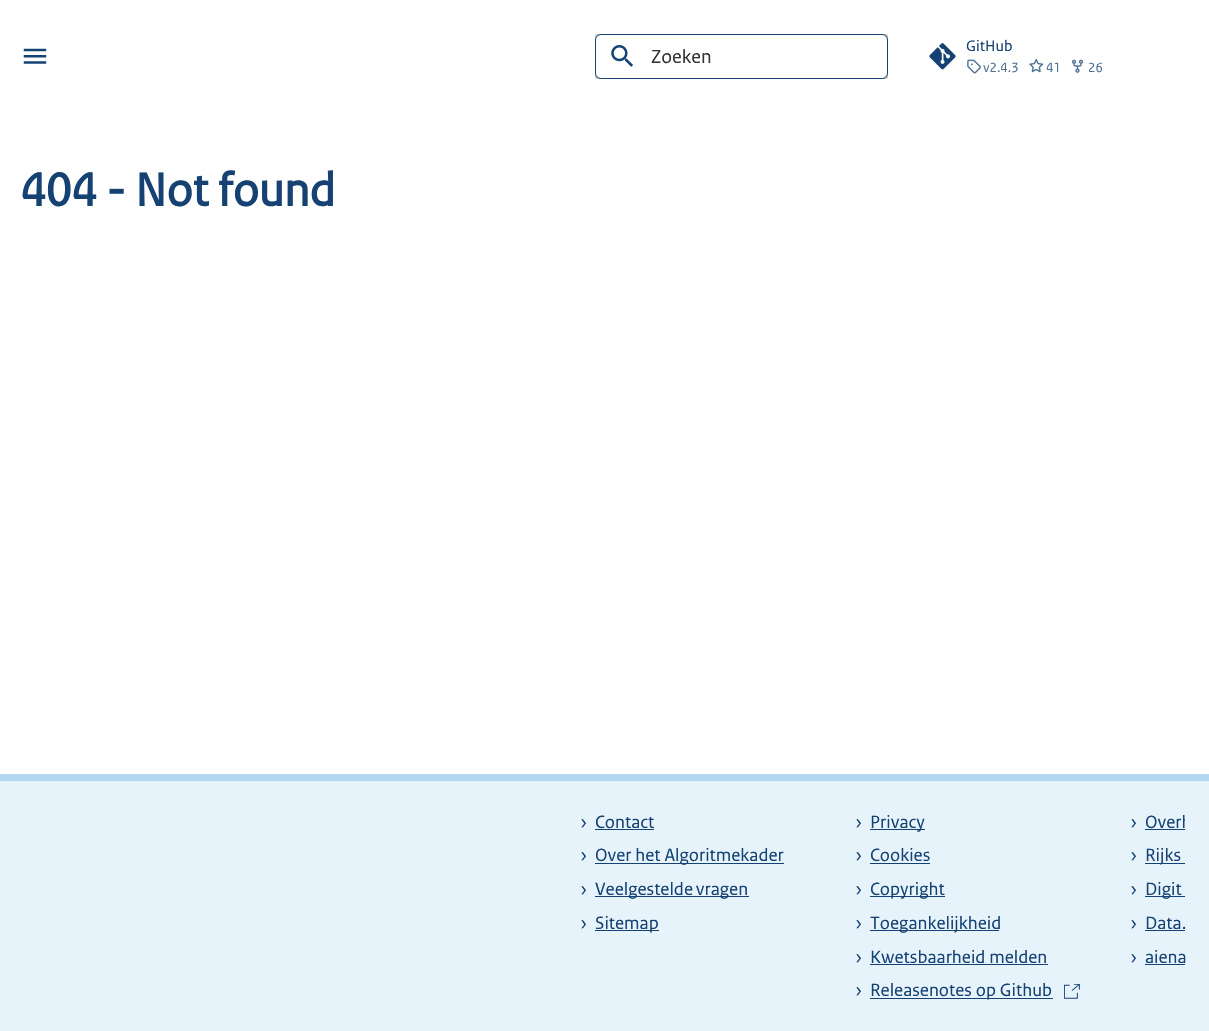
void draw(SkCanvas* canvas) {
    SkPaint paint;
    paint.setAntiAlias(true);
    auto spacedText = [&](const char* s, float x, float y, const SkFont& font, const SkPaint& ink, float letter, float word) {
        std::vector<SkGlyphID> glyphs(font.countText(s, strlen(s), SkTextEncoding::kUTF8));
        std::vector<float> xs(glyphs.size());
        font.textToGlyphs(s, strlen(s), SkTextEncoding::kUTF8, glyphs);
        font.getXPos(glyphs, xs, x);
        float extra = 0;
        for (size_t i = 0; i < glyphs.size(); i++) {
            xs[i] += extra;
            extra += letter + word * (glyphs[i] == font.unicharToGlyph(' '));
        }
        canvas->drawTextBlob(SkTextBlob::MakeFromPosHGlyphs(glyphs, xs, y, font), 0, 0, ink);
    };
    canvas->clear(0xFFFFFFFF);
    canvas->drawImageRect(SkImages::DeferredFromEncodedData(SkData::MakeFromFileName("img1.png")), SkRect::MakeXYWH(23, 48, 24, 16), SkSamplingOptions());
    paint.setColor(0xFFBDBDBD);
    canvas->drawRoundRect(SkRect::MakeXYWH(595, 34, 293, 45), 2.5f, 2.5f, paint);
    paint.setColor(0xFFFFFFFF);
    canvas->drawRoundRect(SkRect::MakeXYWH(595.5f, 34.5f, 292, 44), 5.5f, 5.5f, paint);
    paint.setStyle(SkPaint::kStroke_Style);
    paint.setStrokeWidth(1);
    paint.setColor(0xFF154273);
    canvas->drawRoundRect(SkRect::MakeXYWH(595.5f, 34.5f, 292, 44), 5.5f, 5.5f, paint);
    canvas->drawImageRect(SkImages::DeferredFromEncodedData(SkData::MakeFromFileName("img2.png")), SkRect::MakeXYWH(611, 45, 22, 22), SkSamplingOptions());
    SkFont font1(fontMgr->matchFamilyStyle("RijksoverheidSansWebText", SkFontStyle::Normal()), 20);
    font1.setSubpixel(true);
    paint.setStyle(SkPaint::kFill_Style);
    paint.setColor(0xFF333333);
    canvas->drawString("Zoeken", 651, 63, font1, paint);
    canvas->drawImageRect(SkImages::DeferredFromEncodedData(SkData::MakeFromFileName("img3.png")), SkRect::MakeXYWH(929, 43, 27, 27), SkSamplingOptions());
    SkFont font2(fontMgr->matchFamilyStyle("RijksoverheidSansWebText", SkFontStyle::Normal()), 16);
    font2.setSubpixel(true);
    paint.setColor(0xFF154273);
    canvas->drawString("GitHub", 966, 51, font2, paint);
    canvas->drawImageRect(SkImages::DeferredFromEncodedData(SkData::MakeFromFileName("img4.png")), SkRect::MakeXYWH(967, 59, 14, 15), SkSamplingOptions());
    SkFont font3(fontMgr->matchFamilyStyle("RijksoverheidSansWebText", SkFontStyle::Normal()), 14);
    font3.setSubpixel(true);
    paint.setColor(0xFF507195);
    canvas->drawString("v2.4.3", 983, 72, font3, paint);
    canvas->drawImageRect(SkImages::DeferredFromEncodedData(SkData::MakeFromFileName("img5.png")), SkRect::MakeXYWH(1029, 59, 15, 14), SkSamplingOptions());
    canvas->drawString("41", 1046, 72, font3, paint);
    canvas->drawImageRect(SkImages::DeferredFromEncodedData(SkData::MakeFromFileName("img6.png")), SkRect::MakeXYWH(1071, 59, 13, 14), SkSamplingOptions());
    canvas->drawString("26", 1088, 72, font3, paint);
    SkFont font4(fontMgr->matchFamilyStyle("RijksoverheidSansWebText", SkFontStyle::Bold()), 49);
    font4.setSubpixel(true);
    paint.setColor(0xFF154273);
    spacedText("404 - Not found", 20, 206, font4, paint, -0.5f, 0);
    paint.setColor(0xFFE6F3FB);
    canvas->drawRect(SkRect::MakeXYWH(0, 781, 1209, 250), paint);
    paint.setColor(0xFFB2D7EE);
    canvas->drawRect(SkRect::MakeXYWH(0, 774, 1209, 7), paint);
    SkFont font5(fontMgr->matchFamilyStyle("RijksoverheidSansWebText", SkFontStyle::Normal()), 18.75f);
    font5.setSubpixel(true);
    paint.setColor(0xFF154273);
    canvas->drawString("›", 580, 828, font5, paint);
    canvas->drawString("Contact", 595, 828, font5, paint);
    canvas->drawRect(SkRect::MakeXYWH(595, 829, 59, 1), paint);
    canvas->drawString("›", 580, 861, font5, paint);
    canvas->drawRect(SkRect::MakeXYWH(595, 863, 189, 1), paint);
    canvas->drawString("Over het Algoritmekader", 595, 861, font5, paint);
    canvas->drawString("›", 580, 895, font5, paint);
    canvas->drawRect(SkRect::MakeXYWH(595, 896, 154, 1), paint);
    spacedText("Veelgestelde vragen", 595, 895, font5, paint, 0, -1);
    canvas->drawString("›", 580, 929, font5, paint);
    canvas->drawRect(SkRect::MakeXYWH(595, 930, 64, 1), paint);
    canvas->drawString("Sitemap", 595, 929, font5, paint);
    canvas->drawString("›", 855, 828, font5, paint);
    canvas->drawRect(SkRect::MakeXYWH(870, 829, 55, 1), paint);
    canvas->drawString("Privacy", 870, 828, font5, paint);
    canvas->drawString("›", 855, 861, font5, paint);
    canvas->drawString("Cookies", 870, 861, font5, paint);
    canvas->drawRect(SkRect::MakeXYWH(870, 863, 60, 1), paint);
    canvas->drawString("›", 855, 895, font5, paint);
    canvas->drawRect(SkRect::MakeXYWH(870, 896, 75, 1), paint);
    canvas->drawString("Copyright", 870, 895, font5, paint);
    canvas->drawString("›", 855, 929, font5, paint);
    canvas->drawRect(SkRect::MakeXYWH(870, 930, 129, 1), paint);
    canvas->drawString("Toegankelijkheid", 870, 929, font5, paint);
    canvas->drawString("›", 855, 963, font5, paint);
    canvas->drawString("Kwetsbaarheid melden", 870, 963, font5, paint);
    canvas->drawRect(SkRect::MakeXYWH(870, 964, 178, 1), paint);
    canvas->drawImageRect(SkImages::DeferredFromEncodedData(SkData::MakeFromFileName("img7.png")), SkRect::MakeXYWH(1064, 984, 16, 15), SkSamplingOptions());
    canvas->drawString("›", 855, 996, font5, paint);
    canvas->drawRect(SkRect::MakeXYWH(870, 998, 183, 1), paint);
    canvas->drawString("Releasenotes op Github", 870, 996, font5, paint);
    canvas->drawString("›", 1130, 828, font5, paint);
    canvas->save();
    canvas->clipRect(SkRect::MakeXYWH(25, 806, 1160, 200));
    canvas->drawString("Overh", 1145, 828, font5, paint);
    canvas->restore();
    canvas->drawRect(SkRect::MakeXYWH(1145, 829, 40, 1), paint);
    canvas->drawString("›", 1130, 861, font5, paint);
    canvas->drawRect(SkRect::MakeXYWH(1145, 863, 40, 1), paint);
    canvas->drawString("Rijks", 1145, 861, font5, paint);
    canvas->drawString("›", 1130, 895, font5, paint);
    canvas->drawRect(SkRect::MakeXYWH(1145, 896, 40, 1), paint);
    canvas->drawString("Digit", 1145, 895, font5, paint);
    canvas->drawString("›", 1130, 929, font5, paint);
    canvas->drawString("Data.", 1145, 929, font5, paint);
    canvas->drawRect(SkRect::MakeXYWH(1145, 930, 40, 1), paint);
    canvas->drawString("›", 1130, 963, font5, paint);
    canvas->drawString("aiena", 1145, 963, font5, paint);
    canvas->drawRect(SkRect::MakeXYWH(1145, 964, 40, 1), paint);
}
